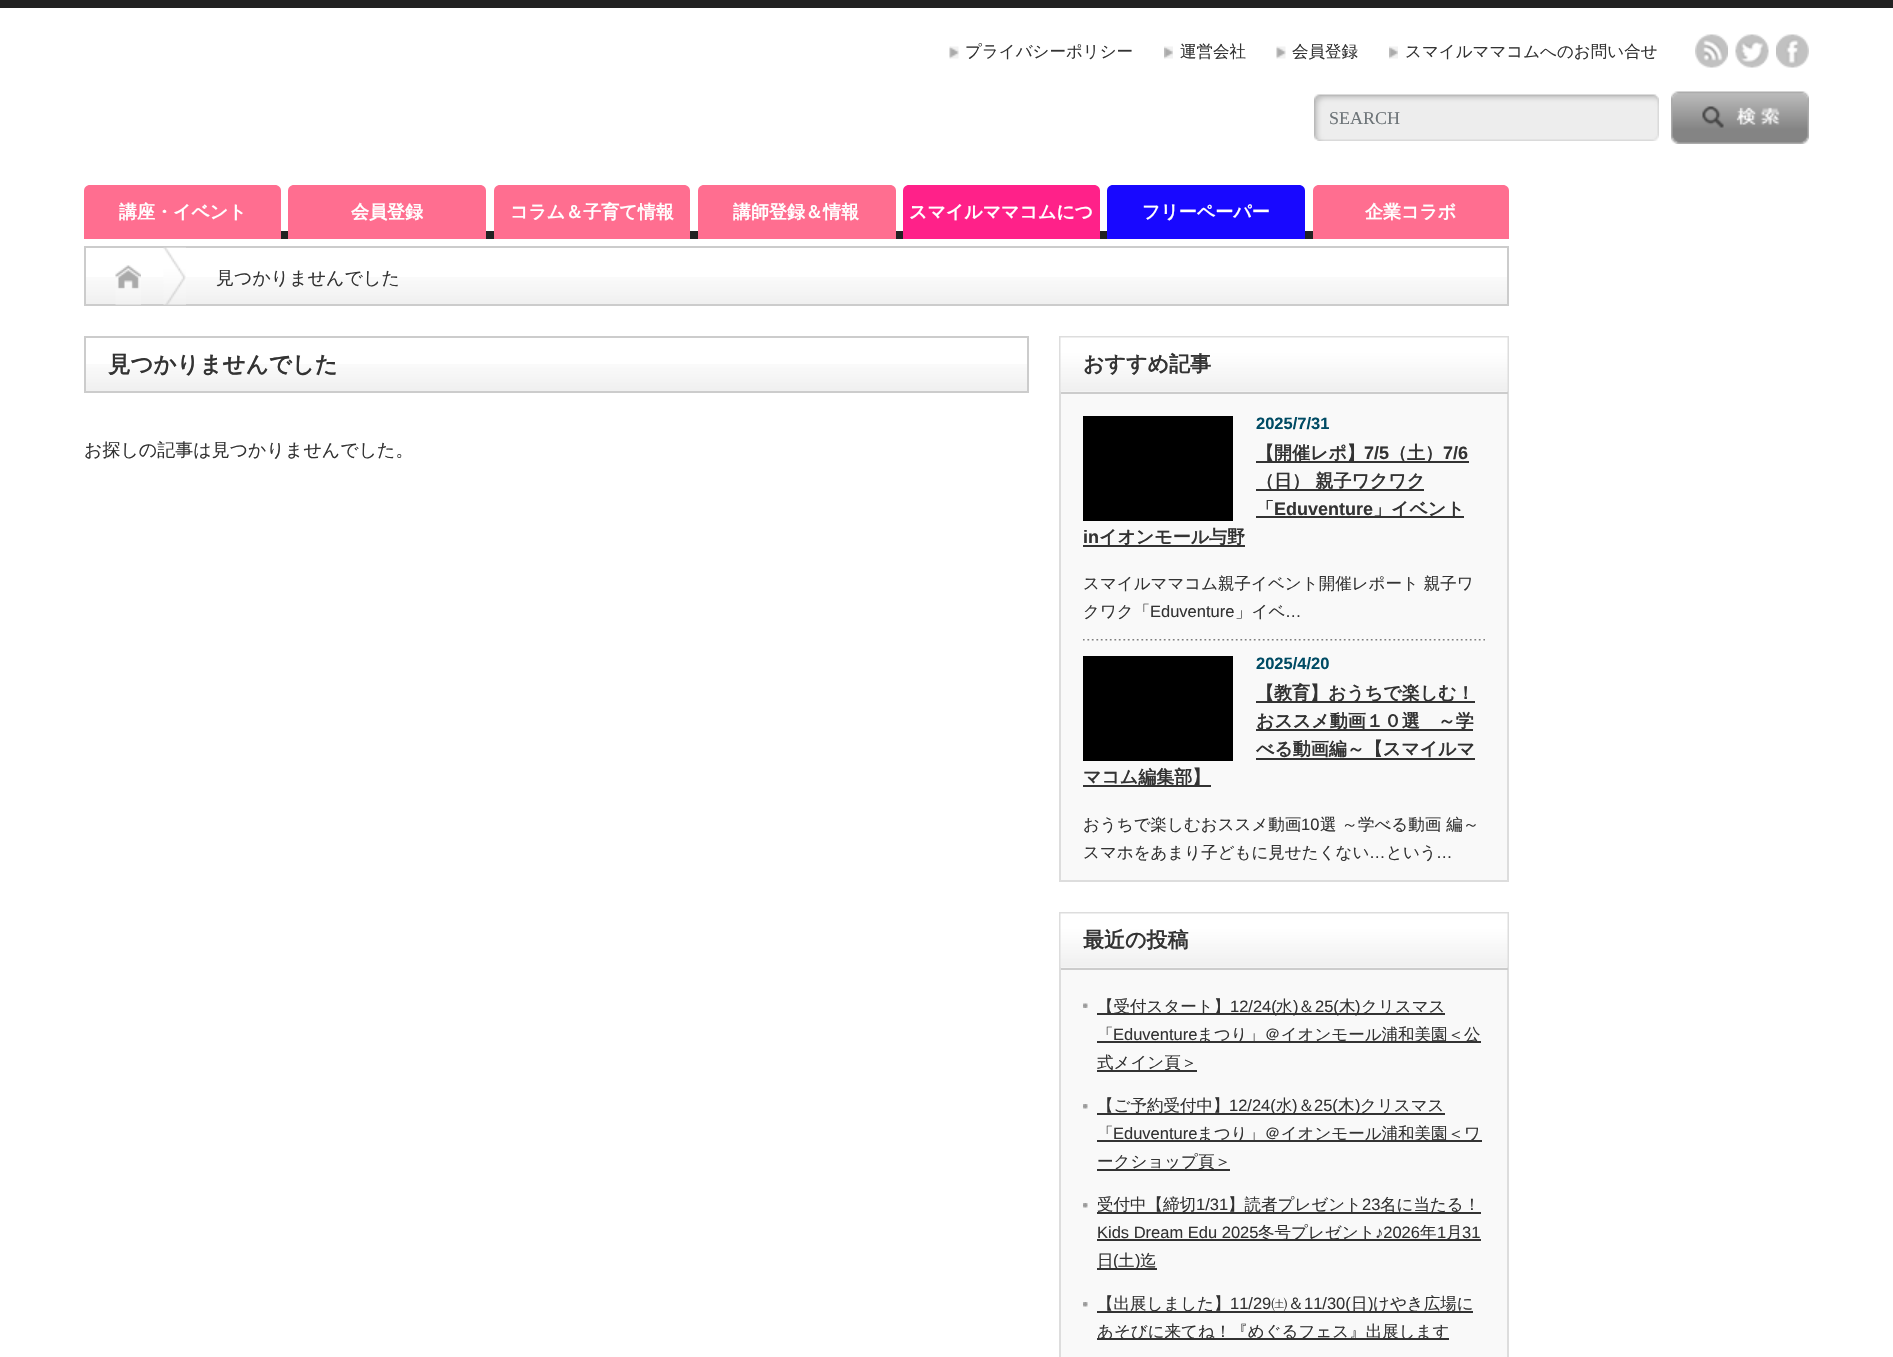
void draw(SkCanvas* canvas) {
    SkPaint paint;
    paint.setAntiAlias(true);
    canvas->clear(0xFFFFFFFF);
    paint.setColor(0xFF222222);
    canvas->drawRect(SkRect::MakeXYWH(0, 0, 1893, 8), paint);
    canvas->drawImageRect(SkImages::DeferredFromEncodedData(SkData::MakeFromFileName("img1.png")), SkRect::MakeXYWH(949, 46, 10, 13), SkSamplingOptions());
    SkFont font1(fontMgr->matchFamilyStyle("WenQuanYi Zen Hei", SkFontStyle(500, SkFontStyle::kNormal_Width, SkFontStyle::kUpright_Slant)), 16.5f);
    font1.setSubpixel(true);
    paint.setColor(0xFF333333);
    canvas->drawString("プライバシーポリシー", 965, 57, font1, paint);
    canvas->drawImageRect(SkImages::DeferredFromEncodedData(SkData::MakeFromFileName("img2.png")), SkRect::MakeXYWH(1164, 46, 9, 13), SkSamplingOptions());
    canvas->drawString("運営会社", 1180, 57, font1, paint);
    canvas->drawImageRect(SkImages::DeferredFromEncodedData(SkData::MakeFromFileName("img3.png")), SkRect::MakeXYWH(1276, 46, 10, 13), SkSamplingOptions());
    canvas->drawString("会員登録", 1292, 57, font1, paint);
    canvas->drawImageRect(SkImages::DeferredFromEncodedData(SkData::MakeFromFileName("img4.png")), SkRect::MakeXYWH(1389, 46, 9, 13), SkSamplingOptions());
    canvas->drawString("スマイルママコムへのお問い合せ", 1405, 57, font1, paint);
    canvas->drawImageRect(SkImages::DeferredFromEncodedData(SkData::MakeFromFileName("img5.png")), SkRect::MakeXYWH(1695, 34, 33, 34), SkSamplingOptions());
    canvas->drawImageRect(SkImages::DeferredFromEncodedData(SkData::MakeFromFileName("img6.png")), SkRect::MakeXYWH(1735, 34, 34, 34), SkSamplingOptions());
    canvas->drawImageRect(SkImages::DeferredFromEncodedData(SkData::MakeFromFileName("img7.png")), SkRect::MakeXYWH(1776, 34, 33, 34), SkSamplingOptions());
    canvas->drawImageRect(SkImages::DeferredFromEncodedData(SkData::MakeFromFileName("img8.png")), SkRect::MakeXYWH(1314, 94, 345, 47), SkSamplingOptions());
    SkFont font2(fontMgr->matchFamilyStyle("Liberation Serif", SkFontStyle::Normal()), 18);
    font2.setSubpixel(true);
    paint.setColor(0xFF6D7478);
    canvas->drawString("SEARCH", 1329, 124, font2, paint);
    canvas->drawImageRect(SkImages::DeferredFromEncodedData(SkData::MakeFromFileName("img9.png")), SkRect::MakeXYWH(1671, 91, 138, 53), SkSamplingOptions());
    paint.setColor(0xFF222222);
    canvas->drawRect(SkRect::MakeXYWH(281, 231, 1032, 8), paint);
    paint.setColor(0xFFFF6E90);
    canvas->drawPath(SkPathBuilder().moveTo(90, 185).lineTo(275, 185).cubicTo(278.5f, 185, 281, 187.5f, 281, 191).lineTo(281, 239).lineTo(84, 239).lineTo(84, 191).cubicTo(84, 187.5f, 86.5f, 185, 90, 185).close().detach(), paint);
    SkFont font3(fontMgr->matchFamilyStyle("WenQuanYi Zen Hei", SkFontStyle::Bold()), 18);
    font3.setSubpixel(true);
    paint.setColor(0xFFFFFFFF);
    canvas->drawString("講座・イベント", 119, 218, font3, paint);
    paint.setColor(0xFFFF6E90);
    canvas->drawPath(SkPathBuilder().moveTo(294, 185).lineTo(480, 185).cubicTo(483.5f, 185, 486, 187.5f, 486, 191).lineTo(486, 239).lineTo(288, 239).lineTo(288, 191).cubicTo(288, 187.5f, 290.5f, 185, 294, 185).close().detach(), paint);
    paint.setColor(0xFFFFFFFF);
    canvas->drawString("会員登録", 351, 218, font3, paint);
    paint.setColor(0xFFFF6E90);
    canvas->drawPath(SkPathBuilder().moveTo(500, 185).lineTo(684, 185).cubicTo(687.5f, 185, 690, 187.5f, 690, 191).lineTo(690, 239).lineTo(494, 239).lineTo(494, 191).cubicTo(494, 187.5f, 496.5f, 185, 500, 185).close().detach(), paint);
    paint.setColor(0xFFFFFFFF);
    canvas->drawString("コラム＆子育て情報", 510, 218, font3, paint);
    paint.setColor(0xFFFF6E90);
    canvas->drawPath(SkPathBuilder().moveTo(704, 185).lineTo(890, 185).cubicTo(893.5f, 185, 896, 187.5f, 896, 191).lineTo(896, 239).lineTo(698, 239).lineTo(698, 191).cubicTo(698, 187.5f, 700.5f, 185, 704, 185).close().detach(), paint);
    paint.setColor(0xFFFFFFFF);
    canvas->drawString("講師登録＆情報", 733, 218, font3, paint);
    paint.setColor(0xFFFF2189);
    canvas->drawPath(SkPathBuilder().moveTo(909, 185).lineTo(1094, 185).cubicTo(1097.5f, 185, 1100, 187.5f, 1100, 191).lineTo(1100, 239).lineTo(903, 239).lineTo(903, 191).cubicTo(903, 187.5f, 905.5f, 185, 909, 185).close().detach(), paint);
    paint.setColor(0xFFFFFFFF);
    canvas->drawString("スマイルママコムにつ", 909, 218, font3, paint);
    paint.setColor(0xFF1808FF);
    canvas->drawPath(SkPathBuilder().moveTo(1113, 185).lineTo(1299, 185).cubicTo(1302.5f, 185, 1305, 187.5f, 1305, 191).lineTo(1305, 239).lineTo(1107, 239).lineTo(1107, 191).cubicTo(1107, 187.5f, 1109.5f, 185, 1113, 185).close().detach(), paint);
    paint.setColor(0xFFFFFFFF);
    canvas->drawString("フリーペーパー", 1142, 218, font3, paint);
    paint.setColor(0xFFFF6E90);
    canvas->drawPath(SkPathBuilder().moveTo(1319, 185).lineTo(1503, 185).cubicTo(1506.5f, 185, 1509, 187.5f, 1509, 191).lineTo(1509, 239).lineTo(1313, 239).lineTo(1313, 191).cubicTo(1313, 187.5f, 1315.5f, 185, 1319, 185).close().detach(), paint);
    paint.setColor(0xFFFFFFFF);
    canvas->drawString("企業コラボ", 1365, 218, font3, paint);
    canvas->drawImageRect(SkImages::DeferredFromEncodedData(SkData::MakeFromFileName("img10.png")), SkRect::MakeXYWH(86, 277, 1421, 27), SkSamplingOptions());
    paint.setStyle(SkPaint::kStroke_Style);
    paint.setStrokeWidth(2);
    paint.setColor(0xFFCCCCCC);
    canvas->drawRect(SkRect::MakeXYWH(85, 247, 1423, 58), paint);
    canvas->drawImageRect(SkImages::DeferredFromEncodedData(SkData::MakeFromFileName("img11.png")), SkRect::MakeXYWH(163, 247, 23, 58), SkSamplingOptions());
    canvas->drawImageRect(SkImages::DeferredFromEncodedData(SkData::MakeFromFileName("img12.png")), SkRect::MakeXYWH(115, 265, 26, 40), SkSamplingOptions());
    SkFont font4(fontMgr->matchFamilyStyle("WenQuanYi Zen Hei", SkFontStyle(500, SkFontStyle::kNormal_Width, SkFontStyle::kUpright_Slant)), 18);
    font4.setSubpixel(true);
    paint.setStyle(SkPaint::kFill_Style);
    paint.setColor(0xFF333333);
    canvas->drawString("見つかりませんでした", 216, 284, font4, paint);
    canvas->drawImageRect(SkImages::DeferredFromEncodedData(SkData::MakeFromFileName("img13.png")), SkRect::MakeXYWH(86, 364, 941, 27), SkSamplingOptions());
    paint.setStyle(SkPaint::kStroke_Style);
    paint.setColor(0xFFCCCCCC);
    canvas->drawRect(SkRect::MakeXYWH(85, 337, 943, 55), paint);
    SkFont font5(fontMgr->matchFamilyStyle("WenQuanYi Zen Hei", SkFontStyle::Bold()), 22.5f);
    font5.setSubpixel(true);
    paint.setStyle(SkPaint::kFill_Style);
    paint.setColor(0xFF333333);
    canvas->drawString("見つかりませんでした", 108, 372, font5, paint);
    canvas->drawString("お探しの記事は見つかりませんでした。", 84, 456, font4, paint);
    paint.setColor(0xFFF9F9F9);
    canvas->drawRect(SkRect::MakeXYWH(1061, 391, 446, 489), paint);
    paint.setStyle(SkPaint::kStroke_Style);
    paint.setColor(0xFFDDDDDD);
    canvas->drawRect(SkRect::MakeXYWH(1060, 337, 448, 544), paint);
    canvas->drawImageRect(SkImages::DeferredFromEncodedData(SkData::MakeFromFileName("img14.png")), SkRect::MakeXYWH(1060, 337, 448, 55), SkSamplingOptions());
    paint.setStyle(SkPaint::kFill_Style);
    paint.setColor(0xFFCCCCCC);
    canvas->drawRect(SkRect::MakeXYWH(1061, 392, 447, 2), paint);
    SkFont font6(fontMgr->matchFamilyStyle("WenQuanYi Zen Hei", SkFontStyle::Bold()), 21);
    font6.setSubpixel(true);
    paint.setColor(0xFF333333);
    canvas->drawString("おすすめ記事", 1083, 371, font6, paint);
    canvas->drawImageRect(SkImages::DeferredFromEncodedData(SkData::MakeFromFileName("img15.png")), SkRect::MakeXYWH(1083, 639, 402, 2), SkSamplingOptions());
    paint.setColor(0xFF000000);
    canvas->drawRect(SkRect::MakeXYWH(1083, 416, 150, 105), paint);
    SkFont font7(fontMgr->matchFamilyStyle("Liberation Sans", SkFontStyle::Bold()), 16.5f);
    font7.setSubpixel(true);
    paint.setColor(0xFF004B64);
    canvas->drawString("2025/7/31", 1256, 429, font7, paint);
    paint.setColor(0xFF333333);
    canvas->drawRect(SkRect::MakeXYWH(1256, 461, 213, 2), paint);
    canvas->drawString("【開催レポ】", 1256, 459, font3, paint);
    SkFont font8(fontMgr->matchFamilyStyle("Liberation Sans", SkFontStyle::Bold()), 18);
    font8.setSubpixel(true);
    canvas->drawString("7/5", 1364, 459, font8, paint);
    canvas->drawString("（土）", 1389, 459, font3, paint);
    canvas->drawString("7/6", 1443, 459, font8, paint);
    canvas->drawRect(SkRect::MakeXYWH(1256, 489, 168, 2), paint);
    canvas->drawString("（日） 親子ワクワク", 1256, 487, font3, paint);
    canvas->drawString("「", 1256, 515, font3, paint);
    canvas->drawString("Eduventure", 1274, 515, font8, paint);
    canvas->drawRect(SkRect::MakeXYWH(1256, 516, 208, 2), paint);
    canvas->drawString("」イベント", 1373, 515, font3, paint);
    canvas->drawString("in", 1083, 543, font8, paint);
    canvas->drawRect(SkRect::MakeXYWH(1083, 545, 162, 2), paint);
    canvas->drawString("イオンモール与野", 1099, 543, font3, paint);
    canvas->drawString("スマイルママコム親子イベント開催レポート 親子ワ", 1083, 589, font1, paint);
    canvas->drawString("クワク「", 1083, 617, font1, paint);
    SkFont font9(fontMgr->matchFamilyStyle("Liberation Sans", SkFontStyle::Normal()), 16.5f);
    font9.setSubpixel(true);
    canvas->drawString("Eduventure", 1150, 617, font9, paint);
    canvas->drawString("」イベ", 1235, 617, font1, paint);
    canvas->drawString("…", 1285, 617, font9, paint);
    paint.setColor(0xFF000000);
    canvas->drawRect(SkRect::MakeXYWH(1083, 656, 150, 105), paint);
    paint.setColor(0xFF004B64);
    canvas->drawString("2025/4/20", 1256, 669, font7, paint);
    paint.setColor(0xFF333333);
    canvas->drawRect(SkRect::MakeXYWH(1256, 701, 219, 2), paint);
    canvas->drawString("【教育】おうちで楽しむ！", 1256, 699, font3, paint);
    canvas->drawRect(SkRect::MakeXYWH(1256, 729, 217, 2), paint);
    canvas->drawString("おススメ動画１０選　～学", 1256, 727, font3, paint);
    canvas->drawString("べる動画編～【スマイルマ", 1256, 755, font3, paint);
    canvas->drawRect(SkRect::MakeXYWH(1256, 758, 219, 2), paint);
    canvas->drawRect(SkRect::MakeXYWH(1083, 785, 128, 2), paint);
    canvas->drawString("マコム編集部】", 1083, 783, font3, paint);
    canvas->drawString("おうちで楽しむおススメ動画", 1083, 830, font1, paint);
    canvas->drawString("10", 1301, 830, font9, paint);
    canvas->drawString("選 ～学べる動画 編～", 1320, 830, font1, paint);
    canvas->drawString("スマホをあまり子どもに見せたくない", 1083, 858, font1, paint);
    canvas->drawString("…", 1369, 858, font9, paint);
    canvas->drawString("という", 1386, 858, font1, paint);
    canvas->drawString("…", 1436, 858, font9, paint);
    paint.setColor(0xFFF9F9F9);
    canvas->drawRect(SkRect::MakeXYWH(1061, 967, 446, 390), paint);
    paint.setStyle(SkPaint::kStroke_Style);
    paint.setColor(0xFFDDDDDD);
    canvas->drawRect(SkRect::MakeXYWH(1060, 913, 448, 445), paint);
    canvas->drawImageRect(SkImages::DeferredFromEncodedData(SkData::MakeFromFileName("img14.png")), SkRect::MakeXYWH(1060, 913, 448, 55), SkSamplingOptions());
    paint.setStyle(SkPaint::kFill_Style);
    paint.setColor(0xFFCCCCCC);
    canvas->drawRect(SkRect::MakeXYWH(1061, 968, 447, 2), paint);
    paint.setColor(0xFF333333);
    canvas->drawString("最近の投稿", 1083, 947, font6, paint);
    canvas->drawImageRect(SkImages::DeferredFromEncodedData(SkData::MakeFromFileName("img16.png")), SkRect::MakeXYWH(1083, 1003, 5, 5), SkSamplingOptions());
    canvas->drawRect(SkRect::MakeXYWH(1097, 1013, 348, 2), paint);
    canvas->drawString("【受付スタート】", 1097, 1012, font1, paint);
    canvas->drawString("12/24(", 1230, 1012, font9, paint);
    canvas->drawString("水", 1276, 1012, font1, paint);
    canvas->drawString(")", 1293, 1012, font9, paint);
    canvas->drawString("＆", 1298, 1012, font1, paint);
    canvas->drawString("25(", 1315, 1012, font9, paint);
    canvas->drawString("木", 1339, 1012, font1, paint);
    canvas->drawString(")", 1355, 1012, font9, paint);
    canvas->drawString("クリスマス", 1361, 1012, font1, paint);
    canvas->drawString("「", 1097, 1040, font1, paint);
    canvas->drawString("Eduventure", 1113, 1040, font9, paint);
    canvas->drawRect(SkRect::MakeXYWH(1097, 1041, 384, 2), paint);
    canvas->drawString("まつり」＠イオンモール浦和美園＜公", 1197, 1040, font1, paint);
    canvas->drawRect(SkRect::MakeXYWH(1097, 1070, 100, 2), paint);
    canvas->drawString("式メイン頁＞", 1097, 1068, font1, paint);
    canvas->drawImageRect(SkImages::DeferredFromEncodedData(SkData::MakeFromFileName("img17.png")), SkRect::MakeXYWH(1083, 1104, 5, 5), SkSamplingOptions());
    canvas->drawRect(SkRect::MakeXYWH(1097, 1113, 348, 2), paint);
    canvas->drawString("【ご予約受付中】", 1097, 1111, font1, paint);
    canvas->drawString("12/24(", 1229, 1111, font9, paint);
    canvas->drawString("水", 1276, 1111, font1, paint);
    canvas->drawString(")", 1292, 1111, font9, paint);
    canvas->drawString("＆", 1298, 1111, font1, paint);
    canvas->drawString("25(", 1314, 1111, font9, paint);
    canvas->drawString("木", 1338, 1111, font1, paint);
    canvas->drawString(")", 1355, 1111, font9, paint);
    canvas->drawString("クリスマス", 1360, 1111, font1, paint);
    canvas->drawString("「", 1097, 1139, font1, paint);
    canvas->drawString("Eduventure", 1113, 1139, font9, paint);
    canvas->drawRect(SkRect::MakeXYWH(1097, 1140, 385, 2), paint);
    canvas->drawString("まつり」＠イオンモール浦和美園＜ワ", 1197, 1139, font1, paint);
    canvas->drawRect(SkRect::MakeXYWH(1097, 1169, 133, 2), paint);
    canvas->drawString("ークショップ頁＞", 1097, 1167, font1, paint);
    canvas->drawImageRect(SkImages::DeferredFromEncodedData(SkData::MakeFromFileName("img17.png")), SkRect::MakeXYWH(1083, 1203, 5, 5), SkSamplingOptions());
    canvas->drawRect(SkRect::MakeXYWH(1097, 1212, 384, 2), paint);
    canvas->drawString("受付中【締切", 1097, 1210, font1, paint);
    canvas->drawString("1/31", 1196, 1210, font9, paint);
    canvas->drawString("】読者プレゼント", 1228, 1210, font1, paint);
    canvas->drawString("23", 1362, 1210, font9, paint);
    canvas->drawString("名に当たる！", 1380, 1210, font1, paint);
    canvas->drawString("Kids Dream Edu 2025", 1097, 1238, font9, paint);
    canvas->drawRect(SkRect::MakeXYWH(1097, 1239, 384, 2), paint);
    canvas->drawString("冬号プレゼント", 1258, 1238, font1, paint);
    canvas->drawString("♪2026", 1375, 1238, font9, paint);
    canvas->drawString("年", 1420, 1238, font1, paint);
    canvas->drawString("1", 1437, 1238, font9, paint);
    canvas->drawString("月", 1446, 1238, font1, paint);
    canvas->drawString("31", 1462, 1238, font9, paint);
    canvas->drawString("日", 1097, 1266, font1, paint);
    canvas->drawRect(SkRect::MakeXYWH(1097, 1268, 60, 2), paint);
    canvas->drawString("(", 1113, 1266, font9, paint);
    canvas->drawString("土", 1118, 1266, font1, paint);
    canvas->drawString(")", 1135, 1266, font9, paint);
    canvas->drawString("迄", 1140, 1266, font1, paint);
    canvas->drawImageRect(SkImages::DeferredFromEncodedData(SkData::MakeFromFileName("img17.png")), SkRect::MakeXYWH(1083, 1302, 5, 5), SkSamplingOptions());
    canvas->drawRect(SkRect::MakeXYWH(1097, 1311, 376, 2), paint);
    canvas->drawString("【出展しました】", 1097, 1309, font1, paint);
    canvas->drawString("11/29", 1230, 1309, font9, paint);
    canvas->drawString("㈯＆", 1271, 1309, font1, paint);
    canvas->drawString("11/30(", 1304, 1309, font9, paint);
    canvas->drawString("日", 1351, 1309, font1, paint);
    canvas->drawString(")", 1368, 1309, font9, paint);
    canvas->drawString("けやき広場に", 1373, 1309, font1, paint);
    canvas->drawRect(SkRect::MakeXYWH(1097, 1338, 352, 2), paint);
    canvas->drawString("あそびに来てね！『めぐるフェス』出展します", 1097, 1337, font1, paint);
}
